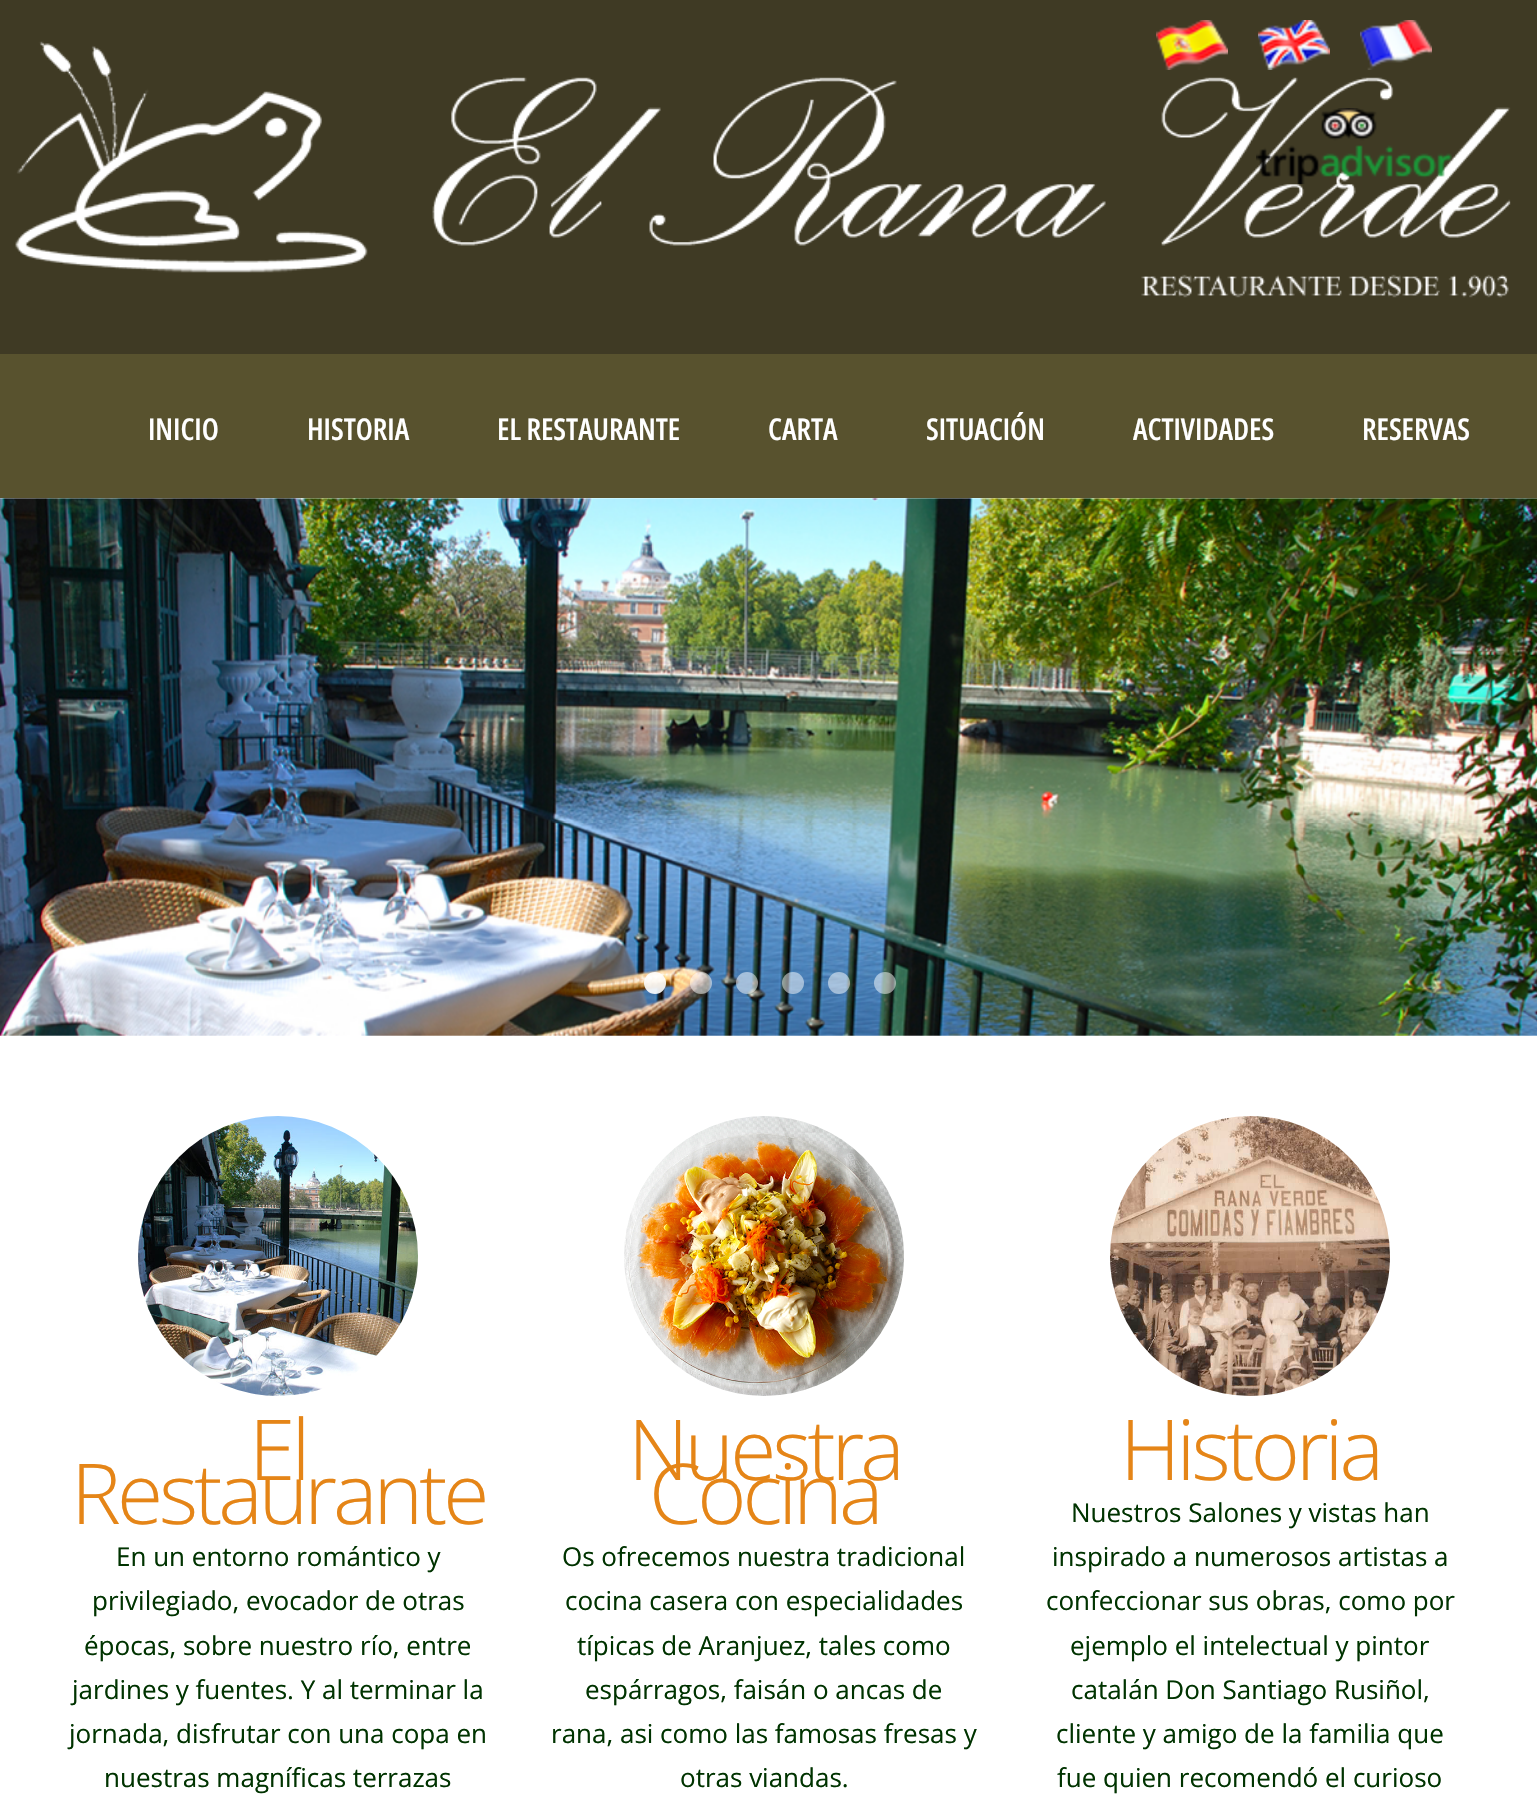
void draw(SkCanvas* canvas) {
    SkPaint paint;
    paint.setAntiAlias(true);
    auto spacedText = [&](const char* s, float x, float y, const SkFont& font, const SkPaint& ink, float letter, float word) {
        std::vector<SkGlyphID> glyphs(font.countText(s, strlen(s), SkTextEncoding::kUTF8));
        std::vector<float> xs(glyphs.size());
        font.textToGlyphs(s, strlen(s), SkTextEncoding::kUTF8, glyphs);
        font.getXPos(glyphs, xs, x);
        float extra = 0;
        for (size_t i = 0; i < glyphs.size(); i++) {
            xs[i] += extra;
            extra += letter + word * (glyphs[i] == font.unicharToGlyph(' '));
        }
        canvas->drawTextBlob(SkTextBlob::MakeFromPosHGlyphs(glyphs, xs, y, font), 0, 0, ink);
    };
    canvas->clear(0xFFFFFFFF);
    paint.setColor(0xFF3F3A24);
    canvas->drawRect(SkRect::MakeXYWH(0, 0, 1537, 354), paint);
    canvas->drawImageRect(SkImages::DeferredFromEncodedData(SkData::MakeFromFileName("img5.png")), SkRect::MakeXYWH(15, 41, 1496, 257), SkSamplingOptions());
    canvas->drawImageRect(SkImages::DeferredFromEncodedData(SkData::MakeFromFileName("img1.png")), SkRect::MakeXYWH(1156, 20, 72, 50), SkSamplingOptions());
    canvas->drawImageRect(SkImages::DeferredFromEncodedData(SkData::MakeFromFileName("img2.png")), SkRect::MakeXYWH(1258, 20, 72, 50), SkSamplingOptions());
    canvas->drawImageRect(SkImages::DeferredFromEncodedData(SkData::MakeFromFileName("img3.png")), SkRect::MakeXYWH(1360, 20, 72, 50), SkSamplingOptions());
    canvas->drawImageRect(SkImages::DeferredFromEncodedData(SkData::MakeFromFileName("img4.png")), SkRect::MakeXYWH(1256, 108, 196, 76), SkSamplingOptions());
    paint.setColor(0xFF58522E);
    canvas->drawRect(SkRect::MakeXYWH(0, 354, 1537, 144), paint);
    SkFont font1(fontMgr->matchFamilyStyle("Open Sans", SkFontStyle(600, SkFontStyle::kNormal_Width, SkFontStyle::kUpright_Slant)), 30);
    font1.setSubpixel(true);
    paint.setColor(0xFFFFFFFF);
    canvas->drawString("INICIO", 148, 440, font1, paint);
    canvas->drawString("HISTORIA", 307, 440, font1, paint);
    canvas->drawString("EL RESTAURANTE", 497, 440, font1, paint);
    canvas->drawString("CARTA", 768, 440, font1, paint);
    canvas->drawString("SITUACIÓN", 926, 440, font1, paint);
    canvas->drawString("ACTIVIDADES", 1133, 440, font1, paint);
    canvas->drawString("RESERVAS", 1362, 440, font1, paint);
    canvas->drawImageRect(SkImages::DeferredFromEncodedData(SkData::MakeFromFileName("img6.png")), SkRect::MakeXYWH(0, 498, 1537, 538), SkSamplingOptions());
    paint.setColor(0xE6FFFFFF);
    canvas->drawCircle(655, 983, 11, paint);
    paint.setColor(0x80FFFFFF);
    canvas->drawCircle(701, 983, 11, paint);
    canvas->drawCircle(747, 983, 11, paint);
    canvas->drawCircle(793, 983, 11, paint);
    canvas->drawCircle(839, 983, 11, paint);
    canvas->drawCircle(885, 983, 11, paint);
    canvas->drawImageRect(SkImages::DeferredFromEncodedData(SkData::MakeFromFileName("img7.png")), SkRect::MakeXYWH(138, 1116, 280, 280), SkSamplingOptions());
    SkFont font2(fontMgr->matchFamilyStyle("Open Sans", SkFontStyle(300, SkFontStyle::kNormal_Width, SkFontStyle::kUpright_Slant)), 84);
    font2.setSubpixel(true);
    paint.setColor(0xFFE58517);
    spacedText("El", 249, 1480, font2, paint, -4, 0);
    spacedText("Restaurante", 71, 1524, font2, paint, -4, 0);
    SkFont font3(fontMgr->matchFamilyStyle("Open Sans", SkFontStyle::Normal()), 26);
    font3.setSubpixel(true);
    paint.setColor(0xFF003300);
    canvas->drawString("En un entorno romántico y", 116, 1566, font3, paint);
    canvas->drawString("privilegiado, evocador de otras", 92, 1610, font3, paint);
    canvas->drawString("épocas, sobre nuestro río, entre", 84, 1655, font3, paint);
    canvas->drawString("jardines y fuentes. Y al terminar la", 72, 1699, font3, paint);
    canvas->drawString("jornada, disfrutar con una copa en", 69, 1743, font3, paint);
    canvas->drawString("nuestras magníficas terrazas", 104, 1787, font3, paint);
    canvas->drawImageRect(SkImages::DeferredFromEncodedData(SkData::MakeFromFileName("img8.png")), SkRect::MakeXYWH(624, 1116, 280, 280), SkSamplingOptions());
    paint.setColor(0xFFE58517);
    spacedText("Nuestra", 628, 1480, font2, paint, -4, 0);
    spacedText("Cocina", 649, 1524, font2, paint, -4, 0);
    paint.setColor(0xFF003300);
    canvas->drawString("Os ofrecemos nuestra tradicional", 562, 1566, font3, paint);
    canvas->drawString("cocina casera con especialidades", 565, 1610, font3, paint);
    canvas->drawString("típicas de Aranjuez, tales como", 577, 1655, font3, paint);
    canvas->drawString("espárragos, faisán o ancas de", 585, 1699, font3, paint);
    canvas->drawString("rana, asi como las famosas fresas y", 551, 1743, font3, paint);
    canvas->drawString("otras viandas.", 680, 1787, font3, paint);
    canvas->drawImageRect(SkImages::DeferredFromEncodedData(SkData::MakeFromFileName("img9.png")), SkRect::MakeXYWH(1110, 1116, 280, 280), SkSamplingOptions());
    paint.setColor(0xFFE58517);
    spacedText("Historia", 1120, 1480, font2, paint, -4, 0);
    paint.setColor(0xFF003300);
    canvas->drawString("Nuestros Salones y vistas han", 1071, 1522, font3, paint);
    canvas->drawString("inspirado a numerosos artistas a", 1052, 1566, font3, paint);
    canvas->drawString("confeccionar sus obras, como por", 1046, 1610, font3, paint);
    canvas->drawString("ejemplo el intelectual y pintor", 1070, 1655, font3, paint);
    canvas->drawString("catalán Don Santiago Rusiñol,", 1071, 1699, font3, paint);
    canvas->drawString("cliente y amigo de la familia que", 1056, 1743, font3, paint);
    canvas->drawString("fue quien recomendó el curioso", 1057, 1787, font3, paint);
}
